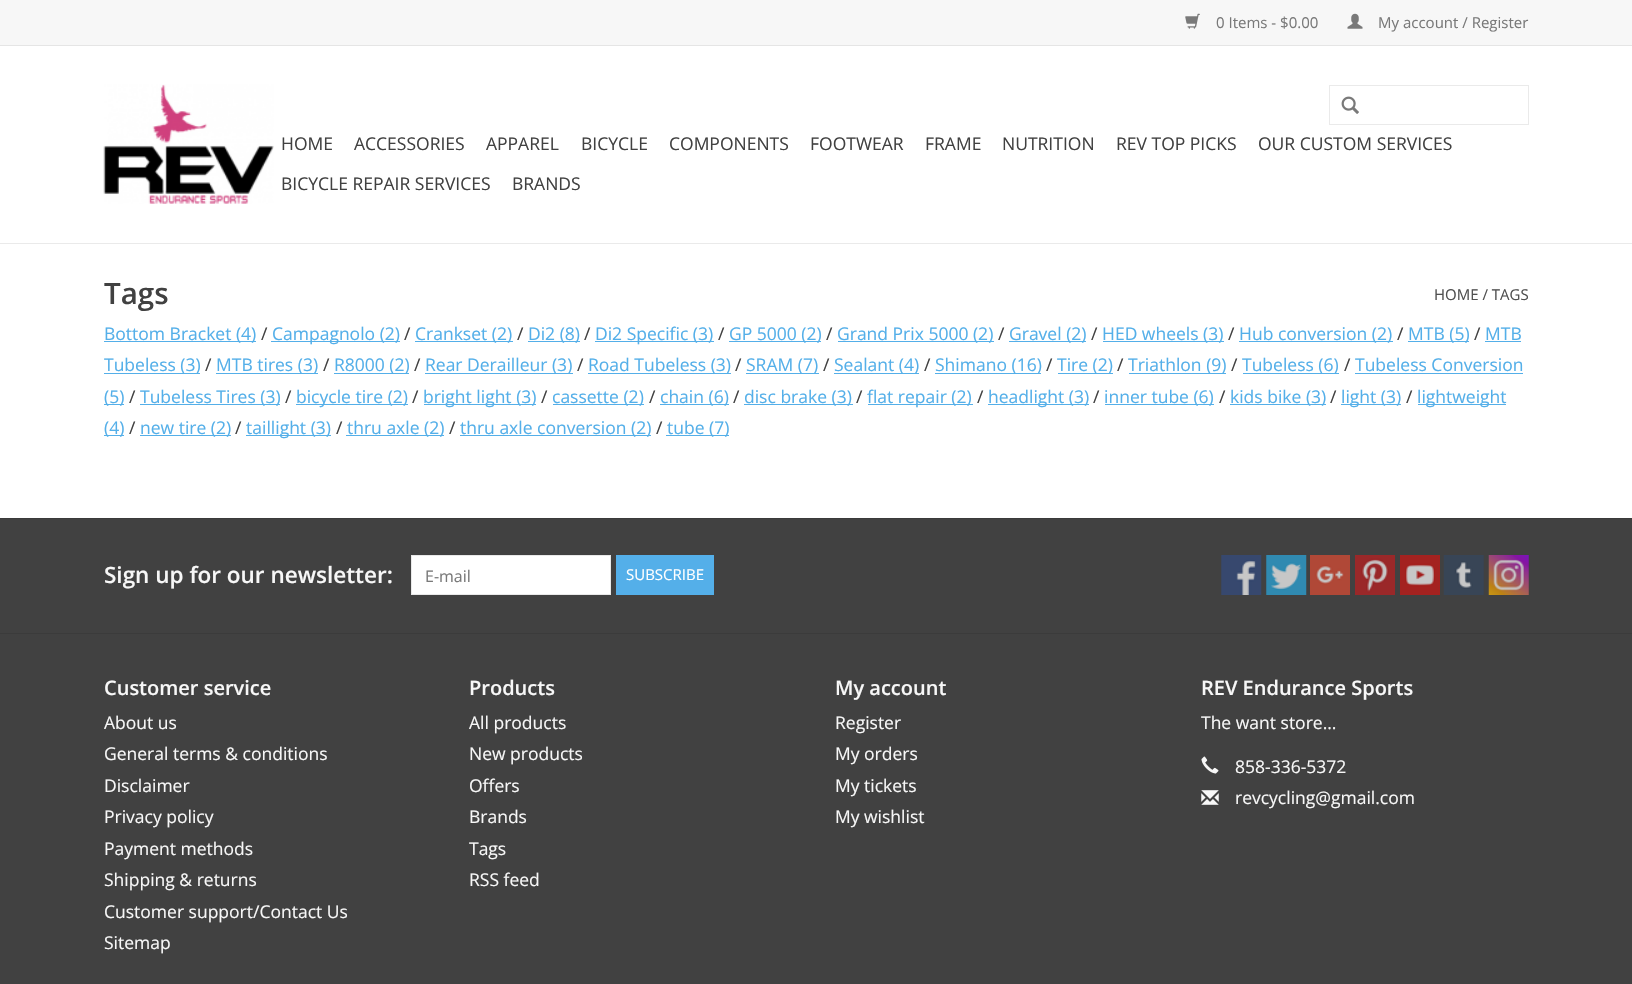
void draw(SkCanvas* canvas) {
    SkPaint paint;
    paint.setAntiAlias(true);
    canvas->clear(0xFFFFFFFF);
    paint.setColor(0xFFEAEAEA);
    canvas->drawRect(SkRect::MakeXYWH(0, 243, 1632, 1), paint);
    paint.setColor(0xFFF7F7F7);
    canvas->drawRect(SkRect::MakeXYWH(0, 0, 1632, 45), paint);
    paint.setColor(0xFFE5E5E5);
    canvas->drawRect(SkRect::MakeXYWH(0, 45, 1632, 1), paint);
    canvas->drawImageRect(SkImages::DeferredFromEncodedData(SkData::MakeFromFileName("img1.png")), SkRect::MakeXYWH(1185, 13, 15, 16), SkSamplingOptions());
    SkFont font1(fontMgr->matchFamilyStyle("Open Sans", SkFontStyle::Normal()), 15);
    font1.setSubpixel(true);
    paint.setColor(0xFF797979);
    canvas->drawString("0 Items - $0.00", 1216, 28, font1, paint);
    canvas->drawImageRect(SkImages::DeferredFromEncodedData(SkData::MakeFromFileName("img2.png")), SkRect::MakeXYWH(1347, 13, 16, 16), SkSamplingOptions());
    canvas->drawString("My account / Register", 1378, 28, font1, paint);
    canvas->drawImageRect(SkImages::DeferredFromEncodedData(SkData::MakeFromFileName("img3.png")), SkRect::MakeXYWH(103, 84, 171, 120), SkSamplingOptions());
    paint.setStyle(SkPaint::kStroke_Style);
    paint.setStrokeWidth(1);
    paint.setColor(0xFFEAEAEA);
    canvas->drawRect(SkRect::MakeXYWH(1329.5f, 85.5f, 199, 39), paint);
    canvas->drawImageRect(SkImages::DeferredFromEncodedData(SkData::MakeFromFileName("img4.png")), SkRect::MakeXYWH(1341, 96, 18, 18), SkSamplingOptions());
    SkFont font2(fontMgr->matchFamilyStyle("Open Sans", SkFontStyle::Normal()), 17.5f);
    font2.setSubpixel(true);
    paint.setStyle(SkPaint::kFill_Style);
    paint.setColor(0xFF414141);
    canvas->drawString("HOME", 281, 150, font2, paint);
    canvas->drawString("ACCESSORIES", 354, 150, font2, paint);
    canvas->drawString("APPAREL", 486, 150, font2, paint);
    canvas->drawString("BICYCLE", 581, 150, font2, paint);
    canvas->drawString("COMPONENTS", 669, 150, font2, paint);
    canvas->drawString("FOOTWEAR", 810, 150, font2, paint);
    canvas->drawString("FRAME", 925, 150, font2, paint);
    canvas->drawString("NUTRITION", 1002, 150, font2, paint);
    canvas->drawString("REV TOP PICKS", 1116, 150, font2, paint);
    canvas->drawString("OUR CUSTOM SERVICES", 1258, 150, font2, paint);
    canvas->drawString("BICYCLE REPAIR SERVICES", 281, 190, font2, paint);
    canvas->drawString("BRANDS", 512, 190, font2, paint);
    SkFont font3(fontMgr->matchFamilyStyle("Open Sans", SkFontStyle(600, SkFontStyle::kNormal_Width, SkFontStyle::kUpright_Slant)), 29.5f);
    font3.setSubpixel(true);
    canvas->drawString("Tags", 104, 304, font3, paint);
    paint.setColor(0xFF505050);
    canvas->drawString("HOME / TAGS", 1434, 300, font1, paint);
    paint.setColor(0xFF54AFE9);
    canvas->drawRect(SkRect::MakeXYWH(104, 341, 152, 1), paint);
    canvas->drawString("Bottom Bracket (4)", 104, 340, font2, paint);
    paint.setColor(0xFF414141);
    canvas->drawString("/", 261, 340, font2, paint);
    paint.setColor(0xFF54AFE9);
    canvas->drawRect(SkRect::MakeXYWH(271, 341, 129, 1), paint);
    canvas->drawString("Campagnolo (2)", 272, 340, font2, paint);
    paint.setColor(0xFF414141);
    canvas->drawString("/", 404, 340, font2, paint);
    paint.setColor(0xFF54AFE9);
    canvas->drawRect(SkRect::MakeXYWH(415, 341, 98, 1), paint);
    canvas->drawString("Crankset (2)", 415, 340, font2, paint);
    paint.setColor(0xFF414141);
    canvas->drawString("/", 517, 340, font2, paint);
    paint.setColor(0xFF54AFE9);
    canvas->drawRect(SkRect::MakeXYWH(528, 341, 52, 1), paint);
    canvas->drawString("Di2 (8)", 528, 340, font2, paint);
    paint.setColor(0xFF414141);
    canvas->drawString("/", 584, 340, font2, paint);
    paint.setColor(0xFF54AFE9);
    canvas->drawRect(SkRect::MakeXYWH(595, 341, 119, 1), paint);
    canvas->drawString("Di2 Specific (3)", 595, 340, font2, paint);
    paint.setColor(0xFF414141);
    canvas->drawString("/", 718, 340, font2, paint);
    paint.setColor(0xFF54AFE9);
    canvas->drawRect(SkRect::MakeXYWH(729, 341, 92, 1), paint);
    canvas->drawString("GP 5000 (2)", 729, 340, font2, paint);
    paint.setColor(0xFF414141);
    canvas->drawString("/", 826, 340, font2, paint);
    paint.setColor(0xFF54AFE9);
    canvas->drawRect(SkRect::MakeXYWH(838, 341, 156, 1), paint);
    canvas->drawString("Grand Prix 5000 (2)", 837, 340, font2, paint);
    paint.setColor(0xFF414141);
    canvas->drawString("/", 998, 340, font2, paint);
    paint.setColor(0xFF54AFE9);
    canvas->drawRect(SkRect::MakeXYWH(1009, 341, 77, 1), paint);
    canvas->drawString("Gravel (2)", 1009, 340, font2, paint);
    paint.setColor(0xFF414141);
    canvas->drawString("/", 1091, 340, font2, paint);
    paint.setColor(0xFF54AFE9);
    canvas->drawRect(SkRect::MakeXYWH(1103, 341, 121, 1), paint);
    canvas->drawString("HED wheels (3)", 1102, 340, font2, paint);
    paint.setColor(0xFF414141);
    canvas->drawString("/", 1228, 340, font2, paint);
    paint.setColor(0xFF54AFE9);
    canvas->drawRect(SkRect::MakeXYWH(1239, 341, 154, 1), paint);
    canvas->drawString("Hub conversion (2)", 1239, 340, font2, paint);
    paint.setColor(0xFF414141);
    canvas->drawString("/", 1397, 340, font2, paint);
    paint.setColor(0xFF54AFE9);
    canvas->drawRect(SkRect::MakeXYWH(1408, 341, 61, 1), paint);
    canvas->drawString("MTB (5)", 1408, 340, font2, paint);
    paint.setColor(0xFF414141);
    canvas->drawString("/", 1474, 340, font2, paint);
    paint.setColor(0xFF54AFE9);
    canvas->drawString("MTB", 1485, 340, font2, paint);
    canvas->drawRect(SkRect::MakeXYWH(1485, 341, 36, 1), paint);
    canvas->drawRect(SkRect::MakeXYWH(104, 373, 96, 1), paint);
    canvas->drawString("Tubeless (3)", 104, 371, font2, paint);
    paint.setColor(0xFF414141);
    canvas->drawString("/", 205, 371, font2, paint);
    paint.setColor(0xFF54AFE9);
    canvas->drawRect(SkRect::MakeXYWH(216, 373, 102, 1), paint);
    canvas->drawString("MTB tires (3)", 216, 371, font2, paint);
    paint.setColor(0xFF414141);
    canvas->drawString("/", 323, 371, font2, paint);
    paint.setColor(0xFF54AFE9);
    canvas->drawRect(SkRect::MakeXYWH(334, 373, 75, 1), paint);
    canvas->drawString("R8000 (2)", 334, 371, font2, paint);
    paint.setColor(0xFF414141);
    canvas->drawString("/", 414, 371, font2, paint);
    paint.setColor(0xFF54AFE9);
    canvas->drawRect(SkRect::MakeXYWH(425, 373, 148, 1), paint);
    canvas->drawString("Rear Derailleur (3)", 425, 371, font2, paint);
    paint.setColor(0xFF414141);
    canvas->drawString("/", 577, 371, font2, paint);
    paint.setColor(0xFF54AFE9);
    canvas->drawRect(SkRect::MakeXYWH(588, 373, 143, 1), paint);
    canvas->drawString("Road Tubeless (3)", 588, 371, font2, paint);
    paint.setColor(0xFF414141);
    canvas->drawString("/", 735, 371, font2, paint);
    paint.setColor(0xFF54AFE9);
    canvas->drawRect(SkRect::MakeXYWH(746, 373, 73, 1), paint);
    canvas->drawString("SRAM (7)", 746, 371, font2, paint);
    paint.setColor(0xFF414141);
    canvas->drawString("/", 823, 371, font2, paint);
    paint.setColor(0xFF54AFE9);
    canvas->drawRect(SkRect::MakeXYWH(834, 373, 85, 1), paint);
    canvas->drawString("Sealant (4)", 834, 371, font2, paint);
    paint.setColor(0xFF414141);
    canvas->drawString("/", 924, 371, font2, paint);
    paint.setColor(0xFF54AFE9);
    canvas->drawRect(SkRect::MakeXYWH(935, 373, 106, 1), paint);
    canvas->drawString("Shimano (16)", 935, 371, font2, paint);
    paint.setColor(0xFF414141);
    canvas->drawString("/", 1046, 371, font2, paint);
    paint.setColor(0xFF54AFE9);
    canvas->drawRect(SkRect::MakeXYWH(1058, 373, 55, 1), paint);
    canvas->drawString("Tire (2)", 1057, 371, font2, paint);
    paint.setColor(0xFF414141);
    canvas->drawString("/", 1117, 371, font2, paint);
    paint.setColor(0xFF54AFE9);
    canvas->drawRect(SkRect::MakeXYWH(1129, 373, 97, 1), paint);
    canvas->drawString("Triathlon (9)", 1128, 371, font2, paint);
    paint.setColor(0xFF414141);
    canvas->drawString("/", 1231, 371, font2, paint);
    paint.setColor(0xFF54AFE9);
    canvas->drawRect(SkRect::MakeXYWH(1243, 373, 96, 1), paint);
    canvas->drawString("Tubeless (6)", 1242, 371, font2, paint);
    paint.setColor(0xFF414141);
    canvas->drawString("/", 1344, 371, font2, paint);
    paint.setColor(0xFF54AFE9);
    canvas->drawString("Tubeless Conversion", 1355, 371, font2, paint);
    canvas->drawRect(SkRect::MakeXYWH(1355, 373, 168, 1), paint);
    canvas->drawRect(SkRect::MakeXYWH(104, 404, 20, 1), paint);
    canvas->drawString("(5)", 104, 403, font2, paint);
    paint.setColor(0xFF414141);
    canvas->drawString("/", 129, 403, font2, paint);
    paint.setColor(0xFF54AFE9);
    canvas->drawRect(SkRect::MakeXYWH(140, 404, 140, 1), paint);
    canvas->drawString("Tubeless Tires (3)", 140, 403, font2, paint);
    paint.setColor(0xFF414141);
    canvas->drawString("/", 285, 403, font2, paint);
    paint.setColor(0xFF54AFE9);
    canvas->drawRect(SkRect::MakeXYWH(296, 404, 112, 1), paint);
    canvas->drawString("bicycle tire (2)", 296, 403, font2, paint);
    paint.setColor(0xFF414141);
    canvas->drawString("/", 412, 403, font2, paint);
    paint.setColor(0xFF54AFE9);
    canvas->drawRect(SkRect::MakeXYWH(424, 404, 112, 1), paint);
    canvas->drawString("bright light (3)", 423, 403, font2, paint);
    paint.setColor(0xFF414141);
    canvas->drawString("/", 541, 403, font2, paint);
    paint.setColor(0xFF54AFE9);
    canvas->drawRect(SkRect::MakeXYWH(553, 404, 91, 1), paint);
    canvas->drawString("cassette (2)", 552, 403, font2, paint);
    paint.setColor(0xFF414141);
    canvas->drawString("/", 649, 403, font2, paint);
    paint.setColor(0xFF54AFE9);
    canvas->drawRect(SkRect::MakeXYWH(660, 404, 69, 1), paint);
    canvas->drawString("chain (6)", 660, 403, font2, paint);
    paint.setColor(0xFF414141);
    canvas->drawString("/", 733, 403, font2, paint);
    paint.setColor(0xFF54AFE9);
    canvas->drawRect(SkRect::MakeXYWH(744, 404, 109, 1), paint);
    canvas->drawString("disc brake (3)", 744, 403, font2, paint);
    paint.setColor(0xFF414141);
    canvas->drawString("/", 856, 403, font2, paint);
    paint.setColor(0xFF54AFE9);
    canvas->drawRect(SkRect::MakeXYWH(868, 404, 105, 1), paint);
    canvas->drawString("flat repair (2)", 867, 403, font2, paint);
    paint.setColor(0xFF414141);
    canvas->drawString("/", 977, 403, font2, paint);
    paint.setColor(0xFF54AFE9);
    canvas->drawRect(SkRect::MakeXYWH(988, 404, 101, 1), paint);
    canvas->drawString("headlight (3)", 988, 403, font2, paint);
    paint.setColor(0xFF414141);
    canvas->drawString("/", 1093, 403, font2, paint);
    paint.setColor(0xFF54AFE9);
    canvas->drawRect(SkRect::MakeXYWH(1105, 404, 109, 1), paint);
    canvas->drawString("inner tube (6)", 1104, 403, font2, paint);
    paint.setColor(0xFF414141);
    canvas->drawString("/", 1219, 403, font2, paint);
    paint.setColor(0xFF54AFE9);
    canvas->drawRect(SkRect::MakeXYWH(1230, 404, 96, 1), paint);
    canvas->drawString("kids bike (3)", 1230, 403, font2, paint);
    paint.setColor(0xFF414141);
    canvas->drawString("/", 1330, 403, font2, paint);
    paint.setColor(0xFF54AFE9);
    canvas->drawRect(SkRect::MakeXYWH(1341, 404, 60, 1), paint);
    canvas->drawString("light (3)", 1341, 403, font2, paint);
    paint.setColor(0xFF414141);
    canvas->drawString("/", 1406, 403, font2, paint);
    paint.setColor(0xFF54AFE9);
    canvas->drawRect(SkRect::MakeXYWH(1418, 404, 88, 1), paint);
    canvas->drawString("lightweight", 1417, 403, font2, paint);
    canvas->drawRect(SkRect::MakeXYWH(104, 435, 20, 1), paint);
    canvas->drawString("(4)", 104, 434, font2, paint);
    paint.setColor(0xFF414141);
    canvas->drawString("/", 129, 434, font2, paint);
    paint.setColor(0xFF54AFE9);
    canvas->drawRect(SkRect::MakeXYWH(140, 435, 91, 1), paint);
    canvas->drawString("new tire (2)", 140, 434, font2, paint);
    paint.setColor(0xFF414141);
    canvas->drawString("/", 235, 434, font2, paint);
    paint.setColor(0xFF54AFE9);
    canvas->drawRect(SkRect::MakeXYWH(246, 435, 85, 1), paint);
    canvas->drawString("taillight (3)", 246, 434, font2, paint);
    paint.setColor(0xFF414141);
    canvas->drawString("/", 336, 434, font2, paint);
    paint.setColor(0xFF54AFE9);
    canvas->drawRect(SkRect::MakeXYWH(346, 435, 98, 1), paint);
    canvas->drawString("thru axle (2)", 347, 434, font2, paint);
    paint.setColor(0xFF414141);
    canvas->drawString("/", 449, 434, font2, paint);
    paint.setColor(0xFF54AFE9);
    canvas->drawRect(SkRect::MakeXYWH(460, 435, 191, 1), paint);
    canvas->drawString("thru axle conversion (2)", 460, 434, font2, paint);
    paint.setColor(0xFF414141);
    canvas->drawString("/", 656, 434, font2, paint);
    paint.setColor(0xFF54AFE9);
    canvas->drawRect(SkRect::MakeXYWH(666, 435, 63, 1), paint);
    canvas->drawString("tube (7)", 667, 434, font2, paint);
    paint.setColor(0xFF414141);
    canvas->drawRect(SkRect::MakeXYWH(0, 519, 1632, 465), paint);
    paint.setColor(0xFF3B3B3B);
    canvas->drawRect(SkRect::MakeXYWH(0, 518, 1632, 1), paint);
    SkFont font4(fontMgr->matchFamilyStyle("Open Sans", SkFontStyle(600, SkFontStyle::kNormal_Width, SkFontStyle::kUpright_Slant)), 22.5f);
    font4.setSubpixel(true);
    paint.setColor(0xFFF7F7F7);
    canvas->drawString("Sign up for our newsletter:", 104, 583, font4, paint);
    paint.setColor(0xFFFFFFFF);
    canvas->drawRect(SkRect::MakeXYWH(411.5f, 555.5f, 199, 39), paint);
    paint.setStyle(SkPaint::kStroke_Style);
    paint.setColor(0xFFE9E9E9);
    canvas->drawRect(SkRect::MakeXYWH(411.5f, 555.5f, 199, 39), paint);
    SkFont font5(fontMgr->matchFamilyStyle("Open Sans", SkFontStyle::Normal()), 16);
    font5.setSubpixel(true);
    paint.setStyle(SkPaint::kFill_Style);
    paint.setColor(0xFF797979);
    canvas->drawString("E-mail", 425, 582, font5, paint);
    paint.setColor(0xFF54AFE9);
    canvas->drawRect(SkRect::MakeXYWH(616, 555, 98, 40), paint);
    paint.setColor(0xFFFFFFFF);
    canvas->drawString("SUBSCRIBE", 626, 580, font1, paint);
    canvas->drawImageRect(SkImages::DeferredFromEncodedData(SkData::MakeFromFileName("img5.png")), SkRect::MakeXYWH(1221, 555, 41, 40), SkSamplingOptions());
    canvas->drawImageRect(SkImages::DeferredFromEncodedData(SkData::MakeFromFileName("img6.png")), SkRect::MakeXYWH(1266, 555, 41, 40), SkSamplingOptions());
    canvas->drawImageRect(SkImages::DeferredFromEncodedData(SkData::MakeFromFileName("img7.png")), SkRect::MakeXYWH(1310, 555, 40, 40), SkSamplingOptions());
    canvas->drawImageRect(SkImages::DeferredFromEncodedData(SkData::MakeFromFileName("img8.png")), SkRect::MakeXYWH(1355, 555, 40, 40), SkSamplingOptions());
    canvas->drawImageRect(SkImages::DeferredFromEncodedData(SkData::MakeFromFileName("img9.png")), SkRect::MakeXYWH(1400, 555, 40, 40), SkSamplingOptions());
    canvas->drawImageRect(SkImages::DeferredFromEncodedData(SkData::MakeFromFileName("img10.png")), SkRect::MakeXYWH(1443, 555, 41, 40), SkSamplingOptions());
    canvas->drawImageRect(SkImages::DeferredFromEncodedData(SkData::MakeFromFileName("img11.png")), SkRect::MakeXYWH(1488, 555, 41, 40), SkSamplingOptions());
    paint.setColor(0xFF3B3B3B);
    canvas->drawRect(SkRect::MakeXYWH(0, 633, 1632, 1), paint);
    SkFont font6(fontMgr->matchFamilyStyle("Open Sans", SkFontStyle(600, SkFontStyle::kNormal_Width, SkFontStyle::kUpright_Slant)), 20);
    font6.setSubpixel(true);
    paint.setColor(0xFFF7F7F7);
    canvas->drawString("Customer service", 104, 695, font6, paint);
    canvas->drawString("About us", 104, 729, font2, paint);
    canvas->drawString("General terms & conditions", 104, 760, font2, paint);
    canvas->drawString("Disclaimer", 104, 792, font2, paint);
    canvas->drawString("Privacy policy", 104, 823, font2, paint);
    canvas->drawString("Payment methods", 104, 855, font2, paint);
    canvas->drawString("Shipping & returns", 104, 886, font2, paint);
    canvas->drawString("Customer support/Contact Us", 104, 918, font2, paint);
    canvas->drawString("Sitemap", 104, 949, font2, paint);
    canvas->drawString("Products", 469, 695, font6, paint);
    canvas->drawString("All products", 469, 729, font2, paint);
    canvas->drawString("New products", 469, 760, font2, paint);
    canvas->drawString("Offers", 469, 792, font2, paint);
    canvas->drawString("Brands", 469, 823, font2, paint);
    canvas->drawString("Tags", 469, 855, font2, paint);
    canvas->drawString("RSS feed", 469, 886, font2, paint);
    canvas->drawString("My account", 835, 695, font6, paint);
    canvas->drawString("Register", 835, 729, font2, paint);
    canvas->drawString("My orders", 835, 760, font2, paint);
    canvas->drawString("My tickets", 835, 792, font2, paint);
    canvas->drawString("My wishlist", 835, 823, font2, paint);
    canvas->drawString("REV Endurance Sports", 1201, 695, font6, paint);
    canvas->drawString("The want store...", 1201, 729, font2, paint);
    canvas->drawImageRect(SkImages::DeferredFromEncodedData(SkData::MakeFromFileName("img12.png")), SkRect::MakeXYWH(1201, 756, 18, 18), SkSamplingOptions());
    canvas->drawString("858-336-5372", 1235, 773, font2, paint);
    canvas->drawImageRect(SkImages::DeferredFromEncodedData(SkData::MakeFromFileName("img13.png")), SkRect::MakeXYWH(1201, 790, 18, 15), SkSamplingOptions());
    canvas->drawString("revcycling@gmail.com", 1235, 804, font2, paint);
}
